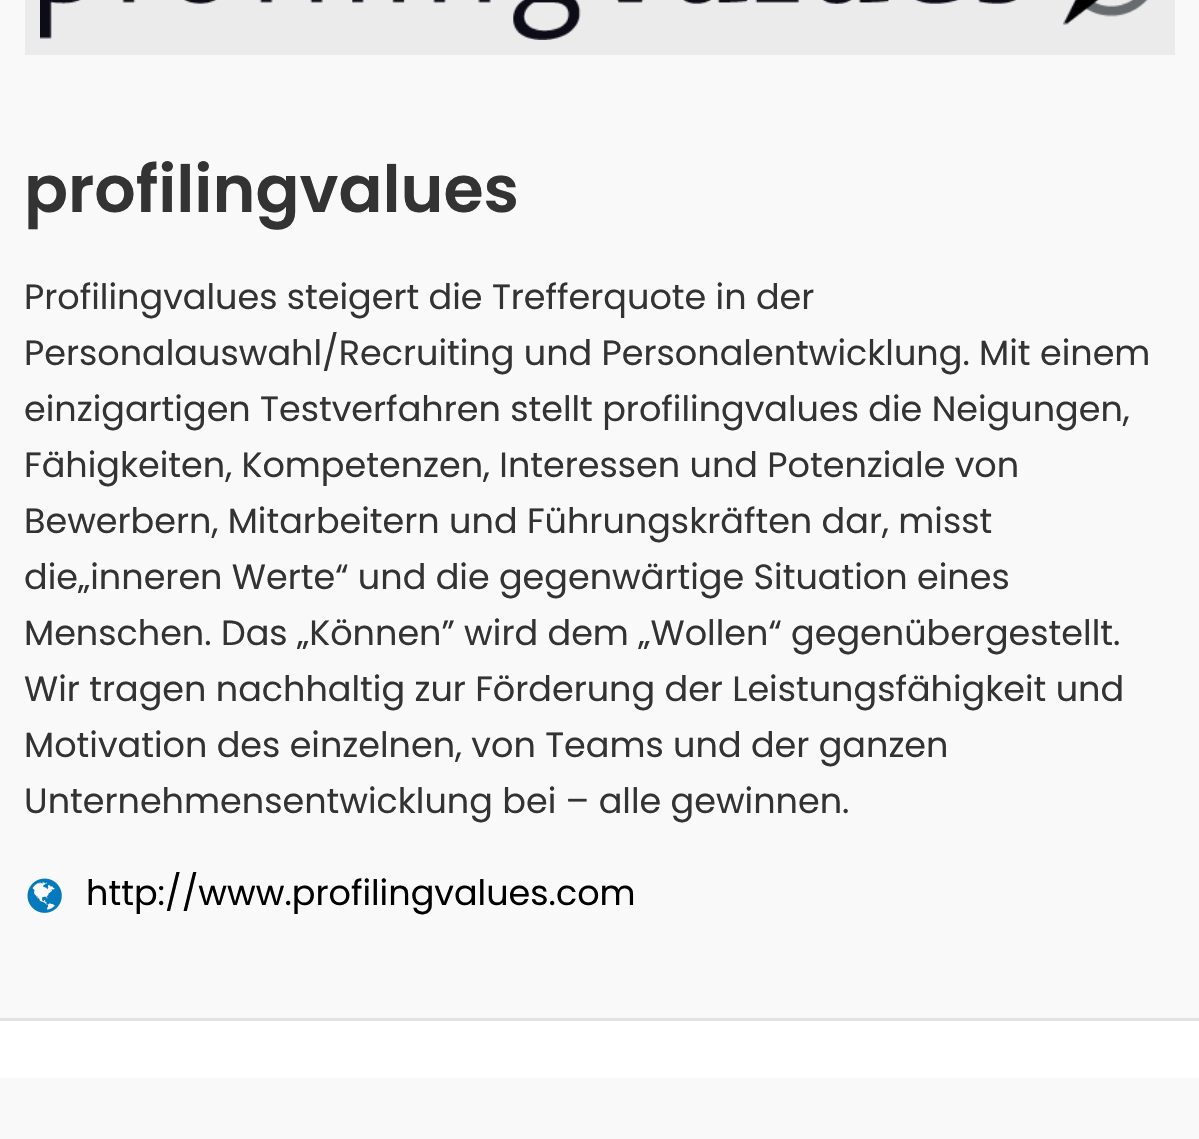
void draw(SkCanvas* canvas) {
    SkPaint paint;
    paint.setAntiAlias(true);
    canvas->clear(0xFFFFFFFF);
    paint.setColor(0xFFF9F9F9);
    canvas->drawRect(SkRect::MakeXYWH(0, 0, 1199, 1018), paint);
    paint.setColor(0xFFE2E2E2);
    canvas->drawRect(SkRect::MakeXYWH(0, 1018, 1199, 3), paint);
    paint.setColor(0xFFEBEBEB);
    canvas->drawRect(SkRect::MakeXYWH(25, 0, 1150, 55), paint);
    canvas->drawImageRect(SkImages::DeferredFromEncodedData(SkData::MakeFromFileName("img1.png")), SkRect::MakeXYWH(40, 0, 1108, 40), SkSamplingOptions());
    SkFont font1(fontMgr->matchFamilyStyle("Poppins", SkFontStyle(600, SkFontStyle::kNormal_Width, SkFontStyle::kUpright_Slant)), 65);
    font1.setSubpixel(true);
    paint.setColor(0xFF333333);
    canvas->drawString("profilingvalues", 24, 212, font1, paint);
    SkFont font2(fontMgr->matchFamilyStyle("Poppins", SkFontStyle::Normal()), 35);
    font2.setSubpixel(true);
    canvas->drawString("Profilingvalues steigert die Trefferquote in der", 24, 309, font2, paint);
    canvas->drawString("Personalauswahl/Recruiting und Personalentwicklung. Mit einem", 24, 365, font2, paint);
    canvas->drawString("einzigartigen Testverfahren stellt profilingvalues die Neigungen,", 24, 421, font2, paint);
    canvas->drawString("Fähigkeiten, Kompetenzen, Interessen und Potenziale von", 24, 477, font2, paint);
    canvas->drawString("Bewerbern, Mitarbeitern und Führungskräften dar, misst", 24, 533, font2, paint);
    canvas->drawString("die„inneren Werte“ und die gegenwärtige Situation eines", 24, 589, font2, paint);
    canvas->drawString("Menschen. Das „Können” wird dem „Wollen“ gegenübergestellt.", 24, 645, font2, paint);
    canvas->drawString("Wir tragen nachhaltig zur Förderung der Leistungsfähigkeit und", 24, 701, font2, paint);
    canvas->drawString("Motivation des einzelnen, von Teams und der ganzen", 24, 757, font2, paint);
    canvas->drawString("Unternehmensentwicklung bei – alle gewinnen.", 24, 813, font2, paint);
    canvas->drawImageRect(SkImages::DeferredFromEncodedData(SkData::MakeFromFileName("img2.png")), SkRect::MakeXYWH(27, 878, 35, 35), SkSamplingOptions());
    paint.setColor(0xFF000000);
    canvas->drawString("http://www.profilingvalues.com", 86, 905, font2, paint);
    paint.setColor(0xFFF9F9F9);
    canvas->drawRect(SkRect::MakeXYWH(0, 1078, 1199, 61), paint);
}
